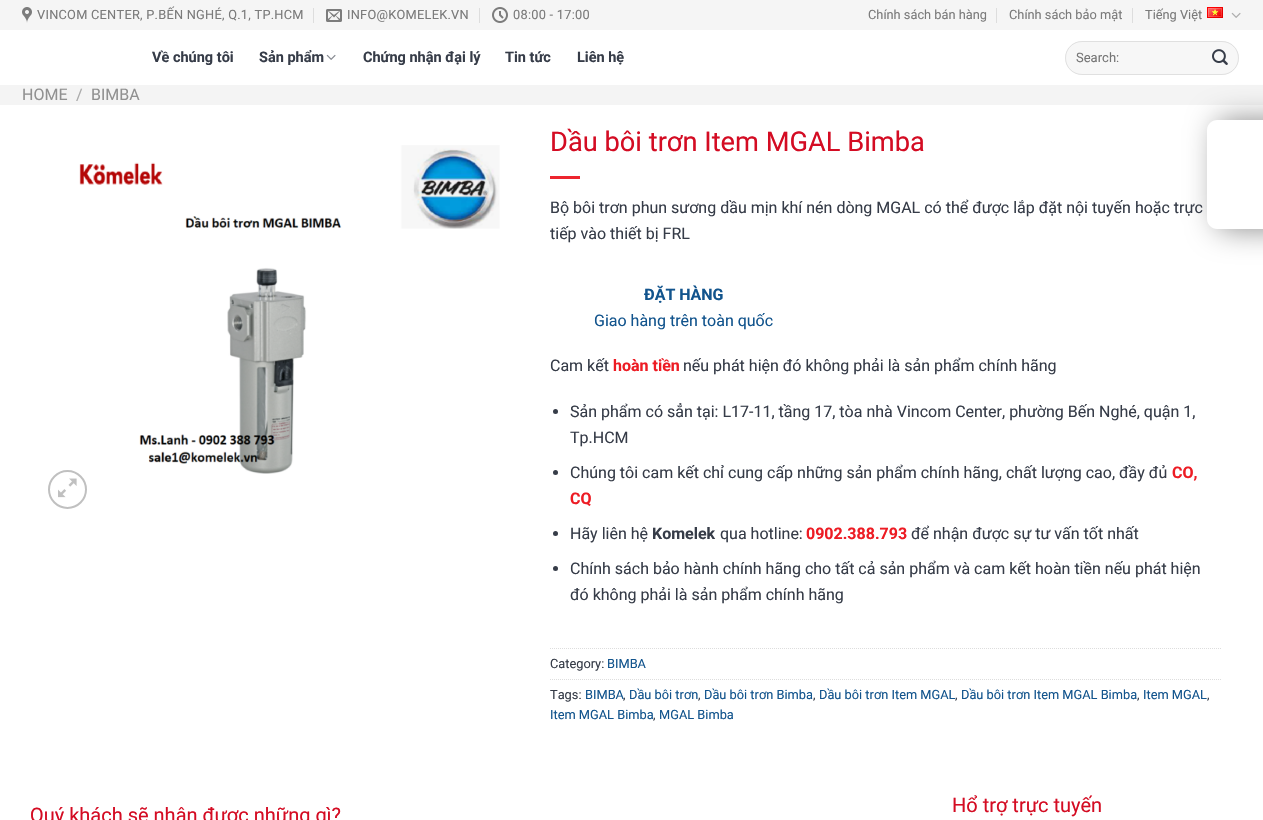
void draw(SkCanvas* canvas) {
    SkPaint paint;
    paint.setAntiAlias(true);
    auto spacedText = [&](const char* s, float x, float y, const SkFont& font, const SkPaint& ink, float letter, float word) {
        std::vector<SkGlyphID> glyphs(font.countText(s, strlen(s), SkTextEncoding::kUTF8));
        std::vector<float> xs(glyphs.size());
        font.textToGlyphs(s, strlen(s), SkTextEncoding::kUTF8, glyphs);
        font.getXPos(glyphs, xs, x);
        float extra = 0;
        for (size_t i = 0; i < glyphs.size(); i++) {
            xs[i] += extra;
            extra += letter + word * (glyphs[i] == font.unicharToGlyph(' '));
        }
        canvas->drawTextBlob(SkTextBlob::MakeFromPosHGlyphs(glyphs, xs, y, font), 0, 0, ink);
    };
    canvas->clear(0xFFFFFFFF);
    paint.setColor(0xFFF5F5F5);
    canvas->drawRect(SkRect::MakeXYWH(0, 0, 1263, 30), paint);
    canvas->drawImageRect(SkImages::DeferredFromEncodedData(SkData::MakeFromFileName("img1.png")), SkRect::MakeXYWH(22, 7, 10, 16), SkSamplingOptions());
    SkFont font1(fontMgr->matchFamilyStyle("Roboto", SkFontStyle::Normal()), 12.8f);
    font1.setSubpixel(true);
    paint.setColor(0xFF7B7B7B);
    spacedText("VINCOM CENTER, P.BẾN NGHÉ, Q.1, TP.HCM", 37, 19, font1, paint, 0.25f, 0);
    paint.setColor(0xFFDDDDDD);
    canvas->drawRect(SkRect::MakeXYWH(313, 8, 1, 15), paint);
    canvas->drawImageRect(SkImages::DeferredFromEncodedData(SkData::MakeFromFileName("img2.png")), SkRect::MakeXYWH(326, 9, 16, 13), SkSamplingOptions());
    paint.setColor(0xFF7B7B7B);
    spacedText("INFO@KOMELEK.VN", 347, 19, font1, paint, 0.25f, 0);
    paint.setColor(0xFFDDDDDD);
    canvas->drawRect(SkRect::MakeXYWH(479, 8, 1, 15), paint);
    canvas->drawImageRect(SkImages::DeferredFromEncodedData(SkData::MakeFromFileName("img3.png")), SkRect::MakeXYWH(492, 7, 16, 16), SkSamplingOptions());
    paint.setColor(0xFF7B7B7B);
    spacedText("08:00 - 17:00", 513, 19, font1, paint, 0.25f, 0);
    canvas->drawString("Chính sách bán hàng", 868, 19, font1, paint);
    paint.setColor(0xFFDDDDDD);
    canvas->drawRect(SkRect::MakeXYWH(996, 8, 1, 15), paint);
    paint.setColor(0xFF7B7B7B);
    canvas->drawString("Chính sách bảo mật", 1009, 19, font1, paint);
    paint.setColor(0xFFDDDDDD);
    canvas->drawRect(SkRect::MakeXYWH(1132, 8, 1, 15), paint);
    paint.setColor(0xFF7B7B7B);
    canvas->drawString("Tiếng Việt", 1145, 19, font1, paint);
    canvas->drawImageRect(SkImages::DeferredFromEncodedData(SkData::MakeFromFileName("img4.png")), SkRect::MakeXYWH(1207, 7, 16, 11), SkSamplingOptions());
    canvas->drawImageRect(SkImages::DeferredFromEncodedData(SkData::MakeFromFileName("img5.png")), SkRect::MakeXYWH(1231, 12, 10, 6), SkSamplingOptions());
    SkFont font2(fontMgr->matchFamilyStyle("Roboto", SkFontStyle::Bold()), 14.5f);
    font2.setSubpixel(true);
    paint.setColor(0xFF363C48);
    canvas->drawString("Về chúng tôi", 152, 62, font2, paint);
    canvas->drawString("Sản phẩm", 259, 62, font2, paint);
    canvas->drawImageRect(SkImages::DeferredFromEncodedData(SkData::MakeFromFileName("img6.png")), SkRect::MakeXYWH(326, 54, 10, 6), SkSamplingOptions());
    canvas->drawString("Chứng nhận đại lý", 363, 62, font2, paint);
    canvas->drawString("Tin tức", 505, 62, font2, paint);
    canvas->drawString("Liên hệ", 577, 62, font2, paint);
    paint.setColor(0xFFF4F4F4);
    canvas->drawRect(SkRect::MakeXYWH(0, 85, 1263, 20), paint);
    paint.setColor(0xFF888888);
    paint.setMaskFilter(SkMaskFilter::MakeBlur(kNormal_SkBlurStyle, 15));
    canvas->drawRoundRect(SkRect::MakeXYWH(1217, 120, 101, 109), 10, 10, paint);
    paint.setMaskFilter(nullptr);
    paint.setColor(0xFFF7F7F7);
    canvas->drawRoundRect(SkRect::MakeXYWH(1065, 41, 174, 34), 17, 17, paint);
    paint.setStyle(SkPaint::kStroke_Style);
    paint.setStrokeWidth(1);
    paint.setColor(0x17000000);
    canvas->drawRoundRect(SkRect::MakeXYWH(1065.5f, 41.5f, 173, 33), 16.5f, 16.5f, paint);
    SkFont font3(fontMgr->matchFamilyStyle("Roboto", SkFontStyle::Normal()), 13);
    font3.setSubpixel(true);
    paint.setStyle(SkPaint::kFill_Style);
    paint.setColor(0xFF757575);
    canvas->drawString("Search:", 1076, 62, font3, paint);
    canvas->drawImageRect(SkImages::DeferredFromEncodedData(SkData::MakeFromFileName("img7.png")), SkRect::MakeXYWH(1212, 49, 16, 16), SkSamplingOptions());
    SkFont font4(fontMgr->matchFamilyStyle("Roboto", SkFontStyle::Normal()), 16);
    font4.setSubpixel(true);
    paint.setColor(0xFF919191);
    canvas->drawString("HOME", 22, 100, font4, paint);
    paint.setColor(0xFFAAAAAA);
    canvas->drawString("/", 76, 100, font4, paint);
    paint.setColor(0xFF919191);
    canvas->drawString("BIMBA", 91, 100, font4, paint);
    canvas->drawImageRect(SkImages::DeferredFromEncodedData(SkData::MakeFromFileName("img8.png")), SkRect::MakeXYWH(79, 145, 421, 329), SkSamplingOptions());
    paint.setStyle(SkPaint::kStroke_Style);
    paint.setStrokeWidth(2);
    paint.setColor(0xFFC0C0C0);
    canvas->drawCircle(67.5f, 489.5f, 18.5f, paint);
    canvas->drawImageRect(SkImages::DeferredFromEncodedData(SkData::MakeFromFileName("img9.png")), SkRect::MakeXYWH(58, 478, 19, 20), SkSamplingOptions());
    SkFont font5(fontMgr->matchFamilyStyle("Roboto", SkFontStyle::Normal()), 27.25f);
    font5.setSubpixel(true);
    paint.setStyle(SkPaint::kFill_Style);
    paint.setColor(0xFFD40C23);
    canvas->drawString("Dầu bôi trơn Item MGAL Bimba", 550, 151, font5, paint);
    paint.setColor(0xFFED252F);
    canvas->drawRect(SkRect::MakeXYWH(550, 176, 30, 3), paint);
    paint.setColor(0xFF363C48);
    canvas->drawString("Bộ bôi trơn phun sương dầu mịn khí nén dòng MGAL có thể được lắp đặt nội tuyến hoặc trực", 550, 213, font4, paint);
    canvas->drawString("tiếp vào thiết bị FRL", 550, 239, font4, paint);
    SkFont font6(fontMgr->matchFamilyStyle("Roboto", SkFontStyle::Bold()), 16);
    font6.setSubpixel(true);
    paint.setColor(0xFF12548D);
    canvas->drawString("ĐẶT HÀNG", 644, 300, font6, paint);
    canvas->drawString("Giao hàng trên toàn quốc", 594, 326, font4, paint);
    paint.setColor(0xFF363C48);
    canvas->drawString("Cam kết", 550, 371, font4, paint);
    paint.setColor(0xFFED1C24);
    canvas->drawString("hoàn tiền", 613, 371, font6, paint);
    paint.setColor(0xFF363C48);
    canvas->drawString("nếu phát hiện đó không phải là sản phẩm chính hãng", 683, 371, font4, paint);
    canvas->drawCircle(555.5f, 411.5f, 2.5f, paint);
    canvas->drawString("Sản phẩm có sẳn tại: L17-11, tầng 17, tòa nhà Vincom Center, phường Bến Nghé, quận 1,", 570, 417, font4, paint);
    canvas->drawString("Tp.HCM", 570, 443, font4, paint);
    canvas->drawCircle(555.5f, 472.5f, 2.5f, paint);
    canvas->drawString("Chúng tôi cam kết chỉ cung cấp những sản phẩm chính hãng, chất lượng cao, đầy đủ", 570, 478, font4, paint);
    paint.setColor(0xFFED1C24);
    canvas->drawString("CO,", 1172, 478, font6, paint);
    canvas->drawString("CQ", 570, 504, font6, paint);
    paint.setColor(0xFF363C48);
    canvas->drawCircle(555.5f, 533.5f, 2.5f, paint);
    canvas->drawString("Hãy liên hệ", 570, 539, font4, paint);
    canvas->drawString("Komelek", 652, 539, font6, paint);
    canvas->drawString("qua hotline:", 720, 539, font4, paint);
    paint.setColor(0xFFED1C24);
    canvas->drawString("0902.388.793", 806, 539, font6, paint);
    paint.setColor(0xFF363C48);
    canvas->drawString("để nhận được sự tư vấn tốt nhất", 911, 539, font4, paint);
    canvas->drawCircle(555.5f, 568.5f, 2.5f, paint);
    canvas->drawString("Chính sách bảo hành chính hãng cho tất cả sản phẩm và cam kết hoàn tiền nếu phát hiện", 570, 574, font4, paint);
    canvas->drawString("đó không phải là sản phẩm chính hãng", 570, 600, font4, paint);
    paint.setStyle(SkPaint::kStroke_Style);
    paint.setStrokeWidth(1);
    paint.setColor(0xFFDDDDDD);
    paint.setPathEffect(SkDashPathEffect::Make({{1, 1}}, 0));
    canvas->drawPath(SkPathBuilder().moveTo(550, 648.5f).lineTo(1221, 648.5f).detach(), paint);
    paint.setPathEffect(nullptr);
    paint.setStyle(SkPaint::kFill_Style);
    paint.setColor(0xFF363C48);
    canvas->drawString("Category:", 550, 668, font1, paint);
    paint.setColor(0xFF12548D);
    canvas->drawString("BIMBA", 607, 668, font1, paint);
    paint.setStyle(SkPaint::kStroke_Style);
    paint.setColor(0xFFDDDDDD);
    paint.setPathEffect(SkDashPathEffect::Make({{1, 1}}, 0));
    canvas->drawPath(SkPathBuilder().moveTo(550, 679.5f).lineTo(1221, 679.5f).detach(), paint);
    paint.setPathEffect(nullptr);
    paint.setStyle(SkPaint::kFill_Style);
    paint.setColor(0xFF363C48);
    canvas->drawString("Tags:", 550, 699, font1, paint);
    paint.setColor(0xFF12548D);
    canvas->drawString("BIMBA", 585, 699, font1, paint);
    paint.setColor(0xFF363C48);
    canvas->drawString(",", 623, 699, font1, paint);
    paint.setColor(0xFF12548D);
    canvas->drawString("Dầu bôi trơn", 629, 699, font1, paint);
    paint.setColor(0xFF363C48);
    canvas->drawString(",", 698, 699, font1, paint);
    paint.setColor(0xFF12548D);
    canvas->drawString("Dầu bôi trơn Bimba", 704, 699, font1, paint);
    paint.setColor(0xFF363C48);
    canvas->drawString(",", 813, 699, font1, paint);
    paint.setColor(0xFF12548D);
    canvas->drawString("Dầu bôi trơn Item MGAL", 819, 699, font1, paint);
    paint.setColor(0xFF363C48);
    canvas->drawString(",", 955, 699, font1, paint);
    paint.setColor(0xFF12548D);
    canvas->drawString("Dầu bôi trơn Item MGAL Bimba", 961, 699, font1, paint);
    paint.setColor(0xFF363C48);
    canvas->drawString(",", 1137, 699, font1, paint);
    paint.setColor(0xFF12548D);
    canvas->drawString("Item MGAL", 1143, 699, font1, paint);
    paint.setColor(0xFF363C48);
    canvas->drawString(",", 1207, 699, font1, paint);
    paint.setColor(0xFF12548D);
    canvas->drawString("Item MGAL Bimba", 550, 719, font1, paint);
    paint.setColor(0xFF363C48);
    canvas->drawString(",", 653, 719, font1, paint);
    paint.setColor(0xFF12548D);
    canvas->drawString("MGAL Bimba", 659, 719, font1, paint);
    SkFont font7(fontMgr->matchFamilyStyle("Roboto", SkFontStyle::Normal()), 20);
    font7.setSubpixel(true);
    paint.setColor(0xFFD40C23);
    canvas->drawString("Quý khách sẽ nhận được những gì?", 30, 822, font7, paint);
    canvas->drawString("Hổ trợ trực tuyến", 952, 812, font7, paint);
    paint.setColor(0xFFFFFFFF);
    canvas->drawPath(SkPathBuilder().moveTo(1217, 120).lineTo(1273, 120).lineTo(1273, 229).lineTo(1217, 229).cubicTo(1211.5f, 229, 1207, 224.5f, 1207, 219).lineTo(1207, 130).cubicTo(1207, 124.5f, 1211.5f, 120, 1217, 120).close().detach(), paint);
}
